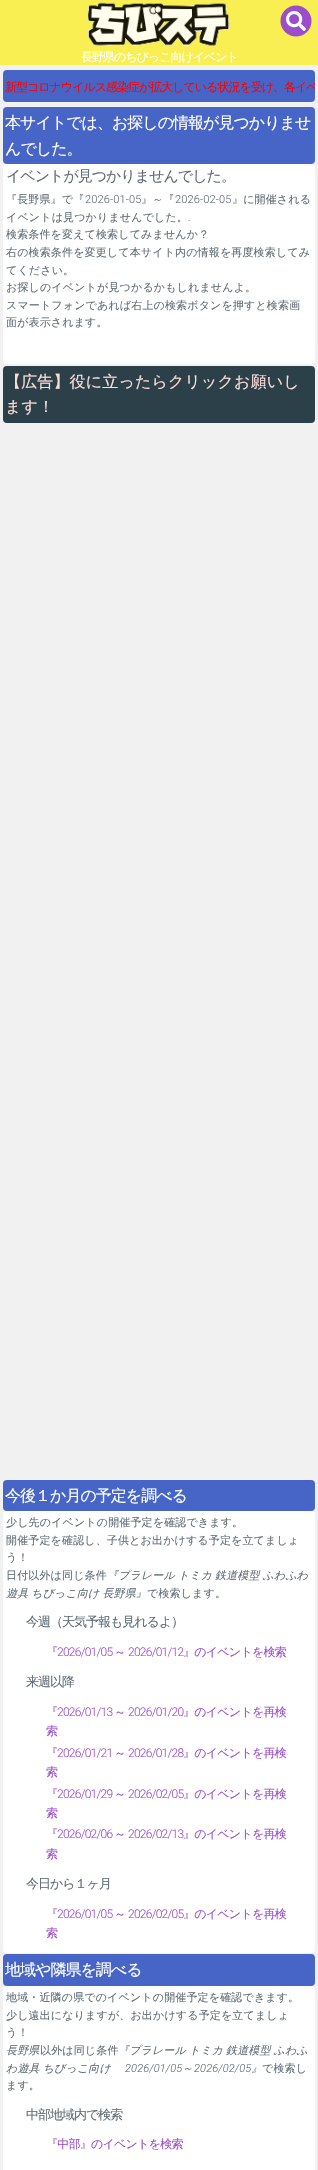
void draw(SkCanvas* canvas) {
    SkPaint paint;
    paint.setAntiAlias(true);
    auto spacedText = [&](const char* s, float x, float y, const SkFont& font, const SkPaint& ink, float letter, float word) {
        std::vector<SkGlyphID> glyphs(font.countText(s, strlen(s), SkTextEncoding::kUTF8));
        std::vector<float> xs(glyphs.size());
        font.textToGlyphs(s, strlen(s), SkTextEncoding::kUTF8, glyphs);
        font.getXPos(glyphs, xs, x);
        float extra = 0;
        for (size_t i = 0; i < glyphs.size(); i++) {
            xs[i] += extra;
            extra += letter + word * (glyphs[i] == font.unicharToGlyph(' '));
        }
        canvas->drawTextBlob(SkTextBlob::MakeFromPosHGlyphs(glyphs, xs, y, font), 0, 0, ink);
    };
    canvas->clear(0xFFF1F1F1);
    paint.setColor(0xFFF9EE52);
    canvas->drawRect(SkRect::MakeXYWH(0, 0, 318, 65), paint);
    canvas->drawImageRect(SkImages::DeferredFromEncodedData(SkData::MakeFromFileName("img1.png")), SkRect::MakeXYWH(280, 5, 32, 32), SkSamplingOptions());
    canvas->drawImageRect(SkImages::DeferredFromEncodedData(SkData::MakeFromFileName("img2.png")), SkRect::MakeXYWH(286, 11, 20, 20), SkSamplingOptions());
    canvas->drawImageRect(SkImages::DeferredFromEncodedData(SkData::MakeFromFileName("img3.png")), SkRect::MakeXYWH(88, 2, 142, 44), SkSamplingOptions());
    SkFont font1(fontMgr->matchFamilyStyle("WenQuanYi Zen Hei", SkFontStyle(500, SkFontStyle::kNormal_Width, SkFontStyle::kUpright_Slant)), 12);
    font1.setSubpixel(true);
    paint.setColor(0xFFFFFFFF);
    spacedText("長野県のちびっこ向けイベント", 81, 61, font1, paint, -1, 0);
    paint.setColor(0xFF4765C7);
    canvas->drawRoundRect(SkRect::MakeXYWH(3, 70, 312, 32), 4, 4, paint);
    canvas->save();
    canvas->clipPath(SkPathBuilder().moveTo(7, 70).lineTo(311, 70).cubicTo(313, 70, 315, 72, 315, 74).lineTo(315, 98).cubicTo(315, 100, 313, 102, 311, 102).lineTo(7, 102).cubicTo(5, 102, 3, 100, 3, 98).lineTo(3, 74).cubicTo(3, 72, 5, 70, 7, 70).close().detach(), true);
    paint.setColor(0xFFFF0000);
    spacedText("新型コロナウイルス感染症が拡大している状況を受け、各イベ", 5, 91, font1, paint, -1, 0);
    canvas->restore();
    paint.setColor(0xFF4765C7);
    canvas->drawRoundRect(SkRect::MakeXYWH(3, 107, 312, 57), 4, 4, paint);
    SkFont font2(fontMgr->matchFamilyStyle("WenQuanYi Zen Hei", SkFontStyle(500, SkFontStyle::kNormal_Width, SkFontStyle::kUpright_Slant)), 16);
    font2.setSubpixel(true);
    paint.setColor(0xFFFFFFFF);
    spacedText("本サイトでは、お探しの情報が見つかりませ", 5, 128, font2, paint, -1, 0);
    spacedText("んでした。", 5, 154, font2, paint, -1, 0);
    canvas->drawRoundRect(SkRect::MakeXYWH(3, 164, 312, 200), 4, 4, paint);
    SkFont font3(fontMgr->matchFamilyStyle("WenQuanYi Zen Hei", SkFontStyle(500, SkFontStyle::kNormal_Width, SkFontStyle::kUpright_Slant)), 15);
    font3.setSubpixel(true);
    paint.setColor(0xFF606C76);
    spacedText("イベントが見つかりませんでした。", 6, 181, font3, paint, -1, 0);
    SkFont font4(fontMgr->matchFamilyStyle("WenQuanYi Zen Hei", SkFontStyle(500, SkFontStyle::kNormal_Width, SkFontStyle::kUpright_Slant)), 11);
    font4.setSubpixel(true);
    spacedText("『長野県』で『", 6, 203, font4, paint, 0.15f, 0);
    SkFont font5(fontMgr->matchFamilyStyle("Roboto", SkFontStyle(300, SkFontStyle::kNormal_Width, SkFontStyle::kUpright_Slant)), 11);
    font5.setSubpixel(true);
    spacedText("2026-01-05", 85, 203, font5, paint, 0.15f, 0);
    spacedText("』～『", 141, 203, font4, paint, 0.15f, 0);
    spacedText("2026-02-05", 175, 203, font5, paint, 0.15f, 0);
    spacedText("』に開催される", 232, 203, font4, paint, 0.15f, 0);
    spacedText("イベントは見つかりませんでした。", 6, 221, font4, paint, 0.15f, 0);
    spacedText(".", 188, 221, font5, paint, 0.15f, 0);
    spacedText("検索条件を変えて検索してみませんか？", 6, 238, font4, paint, 0.15f, 0);
    spacedText("右の検索条件を変更して本サイト内の情報を再度検索してみ", 6, 256, font4, paint, 0.15f, 0);
    spacedText("てください。", 6, 274, font4, paint, 0.15f, 0);
    spacedText("お探しのイベントが見つかるかもしれませんよ。", 6, 291, font4, paint, 0.15f, 0);
    spacedText("スマートフォンであれば右上の検索ボタンを押すと検索画", 6, 309, font4, paint, 0.15f, 0);
    spacedText("面が表示されます。", 6, 326, font4, paint, 0.15f, 0);
    paint.setColor(0xFF2C4049);
    canvas->drawRoundRect(SkRect::MakeXYWH(3, 366, 312, 57), 4, 4, paint);
    paint.setColor(0xFFFFDCD6);
    spacedText("【広告】役に立ったらクリックお願いし", 5, 387, font2, paint, 0.15f, 0);
    spacedText("ます！", 5, 412, font2, paint, 0.15f, 0);
    paint.setColor(0xFF4765C7);
    canvas->drawRoundRect(SkRect::MakeXYWH(3, 1480, 312, 31), 4, 4, paint);
    paint.setColor(0xFFFFFFFF);
    spacedText("今後１か月の予定を調べる", 5, 1501, font2, paint, -1, 0);
    canvas->drawRoundRect(SkRect::MakeXYWH(3, 1511, 312, 442), 4, 4, paint);
    paint.setColor(0xFF606C76);
    spacedText("少し先のイベントの開催予定を確認できます。", 6, 1526, font4, paint, 0.15f, 0);
    spacedText("開催予定を確認し、子供とお出かけする予定を立てましょ", 6, 1544, font4, paint, 0.15f, 0);
    spacedText("う！", 6, 1561, font4, paint, 0.15f, 0);
    spacedText("日付以外は同じ条件", 6, 1579, font4, paint, 0.15f, 0);
    SkFont font6(fontMgr->matchFamilyStyle("WenQuanYi Zen Hei", SkFontStyle(500, SkFontStyle::kNormal_Width, SkFontStyle::kItalic_Slant)), 11);
    font6.setSubpixel(true);
    spacedText("『プラレール トミカ 鉄道模型 ふわふわ", 107, 1579, font6, paint, 0.15f, -0.5f);
    spacedText("遊具 ちびっこ向け 長野県』", 6, 1597, font6, paint, 0.15f, -0.5f);
    spacedText("で検索します。", 147, 1597, font4, paint, 0.15f, 0);
    SkFont font7(fontMgr->matchFamilyStyle("WenQuanYi Zen Hei", SkFontStyle(500, SkFontStyle::kNormal_Width, SkFontStyle::kUpright_Slant)), 13);
    font7.setSubpixel(true);
    spacedText("今週（天気予報も見れるよ）", 26, 1626, font7, paint, -1, 0);
    paint.setColor(0xFF9B4DCA);
    spacedText("『", 46, 1656, font1, paint, -0.75f, 0);
    SkFont font8(fontMgr->matchFamilyStyle("Roboto", SkFontStyle(300, SkFontStyle::kNormal_Width, SkFontStyle::kUpright_Slant)), 12);
    font8.setSubpixel(true);
    spacedText("2026/01/05", 57, 1656, font8, paint, -0.75f, 0);
    spacedText("～", 114, 1656, font1, paint, -0.75f, 0);
    spacedText("2026/01/12", 128, 1656, font8, paint, -0.75f, 0);
    spacedText("』のイベントを検索", 183, 1656, font1, paint, -0.75f, 0);
    paint.setColor(0xFF606C76);
    spacedText("来週以降", 26, 1686, font7, paint, -1, 0);
    paint.setColor(0xFF9B4DCA);
    spacedText("『", 46, 1716, font1, paint, -0.75f, 0);
    spacedText("2026/01/13", 57, 1716, font8, paint, -0.75f, 0);
    spacedText("～", 114, 1716, font1, paint, -0.75f, 0);
    spacedText("2026/01/20", 128, 1716, font8, paint, -0.75f, 0);
    spacedText("』のイベントを再検", 183, 1716, font1, paint, -0.75f, 0);
    spacedText("索", 46, 1735, font1, paint, -0.75f, 0);
    spacedText("『", 46, 1757, font1, paint, -0.75f, 0);
    spacedText("2026/01/21", 57, 1757, font8, paint, -0.75f, 0);
    spacedText("～", 114, 1757, font1, paint, -0.75f, 0);
    spacedText("2026/01/28", 128, 1757, font8, paint, -0.75f, 0);
    spacedText("』のイベントを再検", 183, 1757, font1, paint, -0.75f, 0);
    spacedText("索", 46, 1776, font1, paint, -0.75f, 0);
    spacedText("『", 46, 1798, font1, paint, -0.75f, 0);
    spacedText("2026/01/29", 57, 1798, font8, paint, -0.75f, 0);
    spacedText("～", 114, 1798, font1, paint, -0.75f, 0);
    spacedText("2026/02/05", 128, 1798, font8, paint, -0.75f, 0);
    spacedText("』のイベントを再検", 183, 1798, font1, paint, -0.75f, 0);
    spacedText("索", 46, 1817, font1, paint, -0.75f, 0);
    spacedText("『", 46, 1838, font1, paint, -0.75f, 0);
    spacedText("2026/02/06", 57, 1838, font8, paint, -0.75f, 0);
    spacedText("～", 114, 1838, font1, paint, -0.75f, 0);
    spacedText("2026/02/13", 128, 1838, font8, paint, -0.75f, 0);
    spacedText("』のイベントを再検", 183, 1838, font1, paint, -0.75f, 0);
    spacedText("索", 46, 1858, font1, paint, -0.75f, 0);
    paint.setColor(0xFF606C76);
    spacedText("今日から１ヶ月", 26, 1888, font7, paint, -1, 0);
    paint.setColor(0xFF9B4DCA);
    spacedText("『", 46, 1918, font1, paint, -0.75f, 0);
    spacedText("2026/01/05", 57, 1918, font8, paint, -0.75f, 0);
    spacedText("～", 114, 1918, font1, paint, -0.75f, 0);
    spacedText("2026/02/05", 128, 1918, font8, paint, -0.75f, 0);
    spacedText("』のイベントを再検", 183, 1918, font1, paint, -0.75f, 0);
    spacedText("索", 46, 1937, font1, paint, -0.75f, 0);
    paint.setColor(0xFF4765C7);
    canvas->drawRoundRect(SkRect::MakeXYWH(3, 1954, 312, 32), 4, 4, paint);
    paint.setColor(0xFFFFFFFF);
    spacedText("地域や隣県を調べる", 5, 1975, font2, paint, -1, 0);
    canvas->drawRoundRect(SkRect::MakeXYWH(3, 1986, 312, 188), 4, 4, paint);
    paint.setColor(0xFF606C76);
    spacedText("地域・近隣の県でのイベントの開催予定を確認できます。", 6, 2001, font4, paint, 0.15f, 0);
    spacedText("少し遠出になりますが、お出かけする予定を立てましょ", 6, 2019, font4, paint, 0.15f, 0);
    spacedText("う！", 6, 2036, font4, paint, 0.15f, 0);
    spacedText("長野県", 6, 2054, font6, paint, 0.15f, 0);
    spacedText("以外は同じ条件", 40, 2054, font4, paint, 0.15f, 0);
    spacedText("『プラレール トミカ 鉄道模型 ふわふ", 118, 2054, font6, paint, 0.15f, -0.5f);
    spacedText("わ遊具 ちびっこ向け", 6, 2072, font6, paint, 0.15f, -0.5f);
    SkFont font9(fontMgr->matchFamilyStyle("Roboto", SkFontStyle(300, SkFontStyle::kNormal_Width, SkFontStyle::kItalic_Slant)), 11);
    font9.setSubpixel(true);
    spacedText("2026/01/05", 125, 2072, font9, paint, 0.15f, 0);
    spacedText("～", 182, 2072, font6, paint, 0.15f, 0);
    spacedText("2026/02/05", 194, 2072, font9, paint, 0.15f, 0);
    spacedText("』", 251, 2072, font6, paint, 0.15f, 0);
    spacedText("で検索し", 262, 2072, font4, paint, 0.15f, 0);
    spacedText("ます。", 6, 2089, font4, paint, 0.15f, 0);
    spacedText("中部地域内で検索", 26, 2119, font7, paint, -1, 0);
    paint.setColor(0xFF9B4DCA);
    spacedText("『中部』のイベントを検索", 46, 2148, font1, paint, -0.75f, 0);
}
